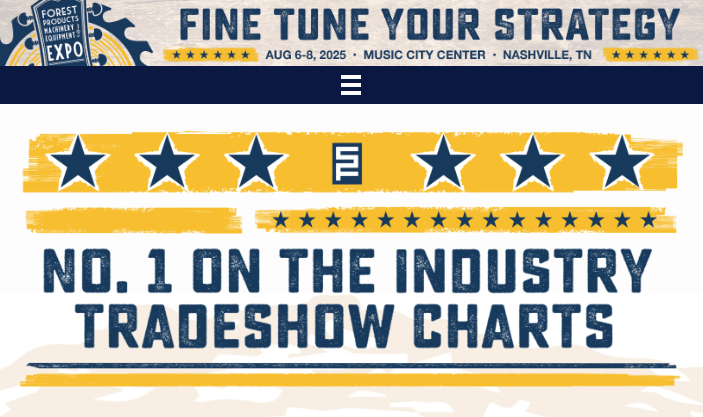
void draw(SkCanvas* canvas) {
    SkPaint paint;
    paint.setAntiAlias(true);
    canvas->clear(0xFFFDFDFD);
    canvas->drawImageRect(SkImages::DeferredFromEncodedData(SkData::MakeFromFileName("img1.png")), SkRect::MakeXYWH(0, 0, 703, 66), SkSamplingOptions());
    paint.setColor(0xFF0B183F);
    canvas->drawRect(SkRect::MakeXYWH(0, 66, 703, 38), paint);
    paint.setColor(0xFFFFFFFF);
    canvas->drawRect(SkRect::MakeXYWH(341, 75, 20, 4), paint);
    canvas->drawRect(SkRect::MakeXYWH(341, 83, 20, 4), paint);
    canvas->drawRect(SkRect::MakeXYWH(341, 91, 20, 4), paint);
    canvas->drawImageRect(SkImages::DeferredFromEncodedData(SkData::MakeFromFileName("img2.png")), SkRect::MakeXYWH(0, 293, 703, 124), SkSamplingOptions());
    canvas->drawImageRect(SkImages::DeferredFromEncodedData(SkData::MakeFromFileName("img3.png")), SkRect::MakeXYWH(20, 130, 663, 257), SkSamplingOptions());
}
